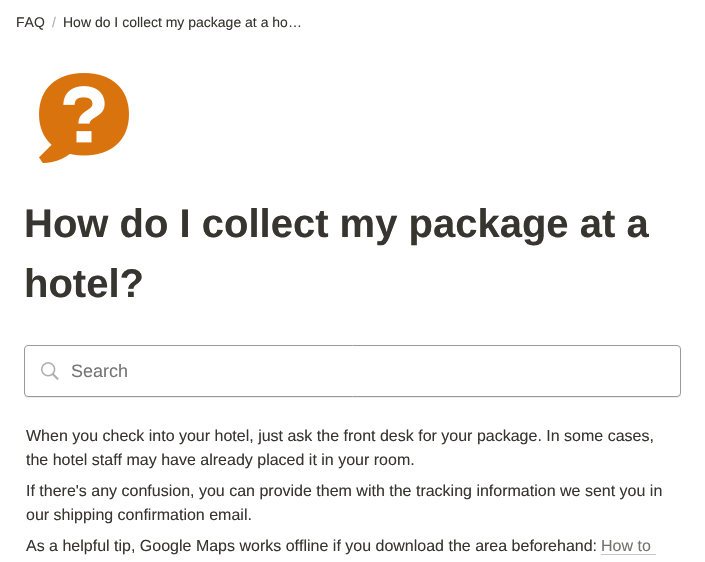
void draw(SkCanvas* canvas) {
    SkPaint paint;
    paint.setAntiAlias(true);
    canvas->clear(0xFFFFFFFF);
    SkFont font1(fontMgr->matchFamilyStyle("Liberation Sans", SkFontStyle::Normal()), 14);
    font1.setSubpixel(true);
    paint.setColor(0xFF37352F);
    canvas->drawString("FAQ", 16, 27, font1, paint);
    paint.setColor(0xFFAFAEAC);
    canvas->drawString("/", 52, 27, font1, paint);
    paint.setColor(0xFF37352F);
    canvas->drawString("How do I collect my package at a ho…", 63, 27, font1, paint);
    canvas->drawImageRect(SkImages::DeferredFromEncodedData(SkData::MakeFromFileName("img1.png")), SkRect::MakeXYWH(39, 73, 90, 90), SkSamplingOptions());
    SkFont font2(fontMgr->matchFamilyStyle("Liberation Sans", SkFontStyle::Bold()), 40);
    font2.setSubpixel(true);
    canvas->drawString("How do I collect my package at a", 24, 237, font2, paint);
    canvas->drawString("hotel?", 24, 297, font2, paint);
    paint.setColor(0xFFEDEDEC);
    canvas->drawPath(SkPathBuilder().moveTo(24, 393).cubicTo(24, 396, 25, 398, 28, 398).lineTo(677, 398).lineTo(680, 397).lineTo(681, 396).lineTo(681, 393).cubicTo(681, 395, 679, 397, 677, 397).lineTo(28, 397).cubicTo(26, 397, 24, 395, 24, 393).close().detach(), paint);
    paint.setStyle(SkPaint::kStroke_Style);
    paint.setStrokeWidth(1);
    paint.setColor(0xFF999999);
    canvas->drawRoundRect(SkRect::MakeXYWH(24.5f, 345.5f, 656, 51), 3.5f, 3.5f, paint);
    canvas->drawImageRect(SkImages::DeferredFromEncodedData(SkData::MakeFromFileName("img2.png")), SkRect::MakeXYWH(41, 362, 18, 18), SkSamplingOptions());
    SkFont font3(fontMgr->matchFamilyStyle("Liberation Sans", SkFontStyle::Normal()), 18);
    font3.setSubpixel(true);
    paint.setStyle(SkPaint::kFill_Style);
    paint.setColor(0xFF757575);
    canvas->drawString("Search", 71, 377, font3, paint);
    SkFont font4(fontMgr->matchFamilyStyle("Liberation Sans", SkFontStyle::Normal()), 16);
    font4.setSubpixel(true);
    paint.setColor(0xFF37352F);
    canvas->drawString("When you check into your hotel, just ask the front desk for your package. In some cases,", 26, 441, font4, paint);
    canvas->drawString("the hotel staff may have already placed it in your room.", 26, 465, font4, paint);
    canvas->drawString("If there's any confusion, you can provide them with the tracking information we sent you in", 26, 496, font4, paint);
    canvas->drawString("our shipping confirmation email.", 26, 520, font4, paint);
    canvas->drawString("As a helpful tip, Google Maps works offline if you download the area beforehand:", 26, 551, font4, paint);
    paint.setColor(0xFF73726D);
    canvas->drawString("How to", 601, 551, font4, paint);
    paint.setColor(0xFFC7C7C5);
    canvas->drawRect(SkRect::MakeXYWH(601, 554, 55, 1), paint);
}
